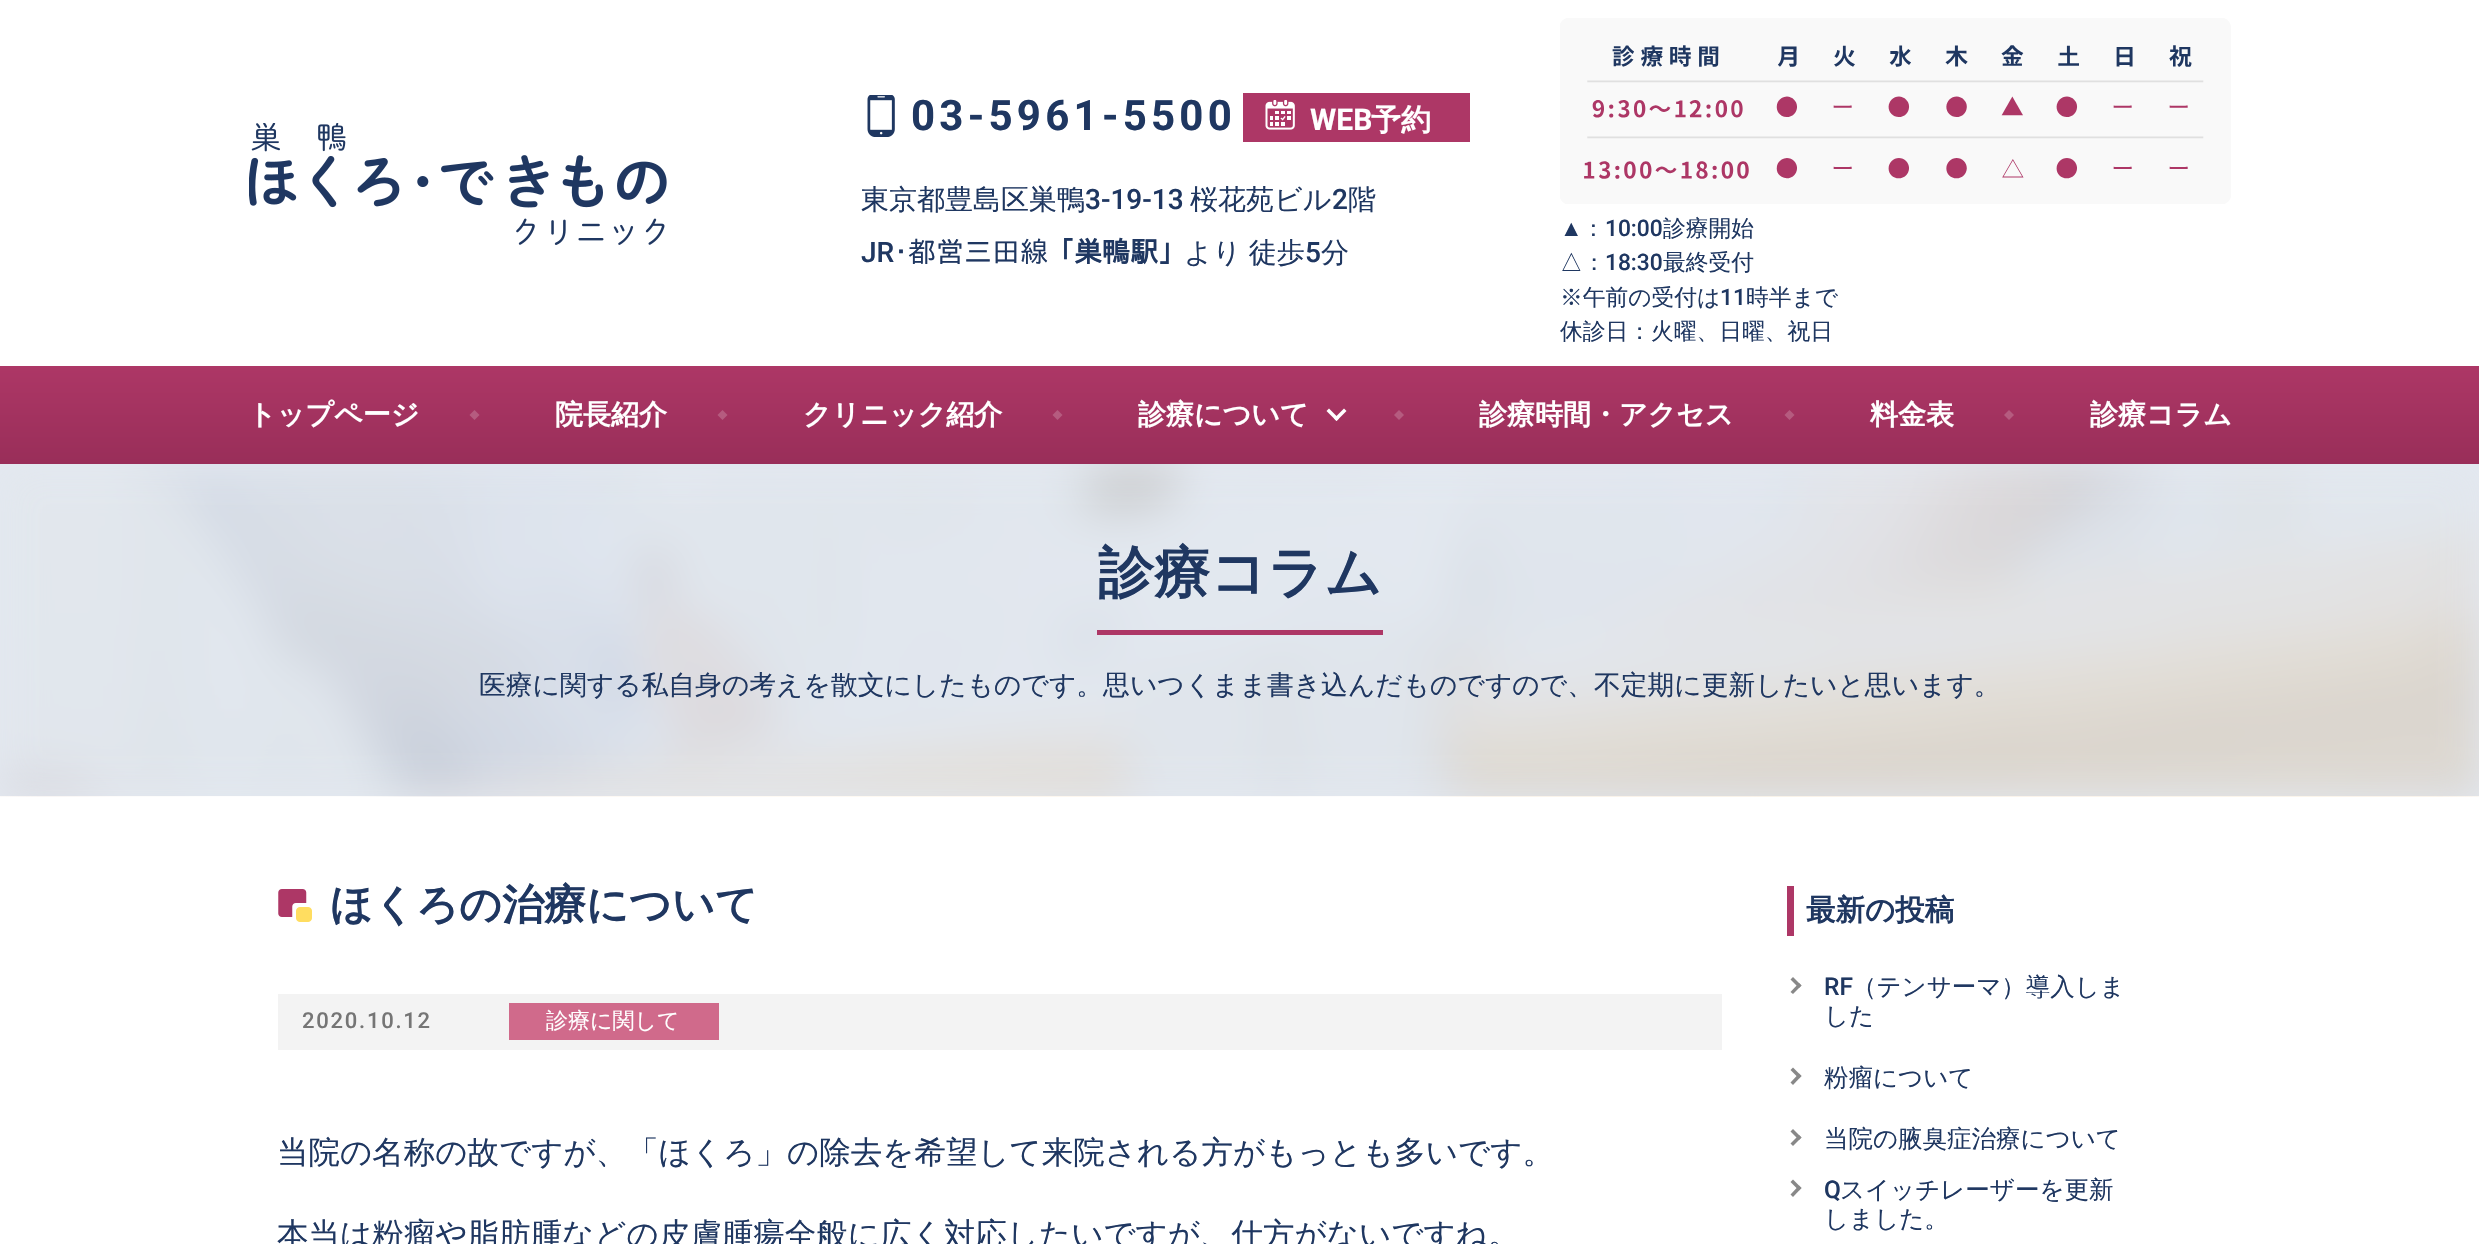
void draw(SkCanvas* canvas) {
    SkPaint paint;
    paint.setAntiAlias(true);
    auto spacedText = [&](const char* s, float x, float y, const SkFont& font, const SkPaint& ink, float letter, float word) {
        std::vector<SkGlyphID> glyphs(font.countText(s, strlen(s), SkTextEncoding::kUTF8));
        std::vector<float> xs(glyphs.size());
        font.textToGlyphs(s, strlen(s), SkTextEncoding::kUTF8, glyphs);
        font.getXPos(glyphs, xs, x);
        float extra = 0;
        for (size_t i = 0; i < glyphs.size(); i++) {
            xs[i] += extra;
            extra += letter + word * (glyphs[i] == font.unicharToGlyph(' '));
        }
        canvas->drawTextBlob(SkTextBlob::MakeFromPosHGlyphs(glyphs, xs, y, font), 0, 0, ink);
    };
    canvas->clear(0xFFFFFFFF);
    paint.setColor(0xFFE4E9F1);
    canvas->drawRect(SkRect::MakeXYWH(0, 464, 2479, 332), paint);
    canvas->drawImageRect(SkImages::DeferredFromEncodedData(SkData::MakeFromFileName("img1.png")), SkRect::MakeXYWH(249, 123, 418, 122), SkSamplingOptions());
    canvas->drawImageRect(SkImages::DeferredFromEncodedData(SkData::MakeFromFileName("img2.png")), SkRect::MakeXYWH(867, 95, 28, 42), SkSamplingOptions());
    SkFont font1(fontMgr->matchFamilyStyle("Roboto", SkFontStyle::Bold()), 42);
    font1.setSubpixel(true);
    paint.setColor(0xFF1F3761);
    spacedText("03-5961-5500", 911, 130, font1, paint, 4.25f, 0);
    paint.setColor(0xFFAD3766);
    canvas->drawRect(SkRect::MakeXYWH(1243, 93, 227, 49), paint);
    canvas->drawImageRect(SkImages::DeferredFromEncodedData(SkData::MakeFromFileName("img3.png")), SkRect::MakeXYWH(1265, 100, 30, 30), SkSamplingOptions());
    SkFont font2(fontMgr->matchFamilyStyle("Roboto", SkFontStyle::Bold()), 30);
    font2.setSubpixel(true);
    paint.setColor(0xFFFFFFFF);
    canvas->drawString("WEB", 1310, 130, font2, paint);
    SkFont font3(fontMgr->matchFamilyStyle("WenQuanYi Zen Hei", SkFontStyle::Bold()), 30);
    font3.setSubpixel(true);
    canvas->drawString("予約", 1371, 130, font3, paint);
    SkFont font4(fontMgr->matchFamilyStyle("WenQuanYi Zen Hei", SkFontStyle(500, SkFontStyle::kNormal_Width, SkFontStyle::kUpright_Slant)), 28);
    font4.setSubpixel(true);
    paint.setColor(0xFF1F3761);
    canvas->drawString("東京都豊島区巣鴨", 861, 209, font4, paint);
    SkFont font5(fontMgr->matchFamilyStyle("Roboto", SkFontStyle(500, SkFontStyle::kNormal_Width, SkFontStyle::kUpright_Slant)), 28);
    font5.setSubpixel(true);
    canvas->drawString("3-19-13", 1085, 209, font5, paint);
    canvas->drawString("桜花苑ビル", 1190, 209, font4, paint);
    canvas->drawString("2", 1332, 209, font5, paint);
    canvas->drawString("階", 1348, 209, font4, paint);
    canvas->drawString("JR", 861, 262, font5, paint);
    SkFont font6(fontMgr->matchFamilyStyle("IPAPGothic", SkFontStyle::Normal()), 28);
    font6.setSubpixel(true);
    canvas->drawString("･都営三田線", 894, 262, font6, paint);
    SkFont font7(fontMgr->matchFamilyStyle("IPAPGothic", SkFontStyle::Bold()), 28);
    font7.setSubpixel(true);
    canvas->drawString("｢巣鴨駅｣", 1060, 262, font7, paint);
    spacedText("より 徒歩", 1184, 262, font4, paint, 0, -1);
    canvas->drawString("5", 1305, 262, font5, paint);
    canvas->drawString("分", 1321, 262, font4, paint);
    canvas->drawImageRect(SkImages::DeferredFromEncodedData(SkData::MakeFromFileName("img4.png")), SkRect::MakeXYWH(1560, 18, 671, 186), SkSamplingOptions());
    SkFont font8(fontMgr->matchFamilyStyle("Liberation Sans", SkFontStyle::Normal()), 22.75f);
    font8.setSubpixel(true);
    canvas->drawString("▲", 1560, 236, font8, paint);
    SkFont font9(fontMgr->matchFamilyStyle("WenQuanYi Zen Hei", SkFontStyle(500, SkFontStyle::kNormal_Width, SkFontStyle::kUpright_Slant)), 22.75f);
    font9.setSubpixel(true);
    canvas->drawString("：", 1582, 236, font9, paint);
    SkFont font10(fontMgr->matchFamilyStyle("Roboto", SkFontStyle(500, SkFontStyle::kNormal_Width, SkFontStyle::kUpright_Slant)), 22.75f);
    font10.setSubpixel(true);
    canvas->drawString("10:00", 1605, 236, font10, paint);
    canvas->drawString("診療開始", 1663, 236, font9, paint);
    canvas->drawString("△：", 1560, 270, font9, paint);
    canvas->drawString("18:30", 1605, 270, font10, paint);
    canvas->drawString("最終受付", 1663, 270, font9, paint);
    canvas->drawString("※午前の受付は", 1560, 305, font9, paint);
    canvas->drawString("11", 1720, 305, font10, paint);
    canvas->drawString("時半まで", 1746, 305, font9, paint);
    canvas->drawString("休診日：火曜、日曜、祝日", 1560, 339, font9, paint);
    {
        const SkColor colors[] = {0xFFAD3766, 0xFF992E59};
        const float stops[] = {0, 1};
        const SkPoint ends[] = {{1240, 366}, {1240, 464}};
        paint.setShader(SkGradientShader::MakeLinear(ends, colors, stops, 2, SkTileMode::kClamp));
        paint.setAlpha(255);
    }
    canvas->drawRect(SkRect::MakeXYWH(0, 366, 2479, 98), paint);
    SkFont font11(fontMgr->matchFamilyStyle("WenQuanYi Zen Hei", SkFontStyle::Bold()), 28);
    font11.setSubpixel(true);
    paint.setShader(nullptr);
    paint.setColor(0xFFFFFFFF);
    canvas->drawString("トップページ", 248, 424, font11, paint);
    paint.setColor(0xFFB55B7F);
    canvas->drawPath(SkPathBuilder().moveTo(474.5f, 410).lineTo(479.5f, 415).lineTo(474.5f, 420).lineTo(469.5f, 415).close().detach(), paint);
    paint.setColor(0xFFFFFFFF);
    canvas->drawString("院長紹介", 555, 424, font11, paint);
    paint.setColor(0xFFB55B7F);
    canvas->drawPath(SkPathBuilder().moveTo(722.5f, 410).lineTo(727.5f, 415).lineTo(722.5f, 420).lineTo(717.5f, 415).close().detach(), paint);
    paint.setColor(0xFFFFFFFF);
    canvas->drawString("クリニック紹介", 803, 424, font11, paint);
    paint.setColor(0xFFB55B7F);
    canvas->drawPath(SkPathBuilder().moveTo(1057.5f, 410).lineTo(1062.5f, 415).lineTo(1057.5f, 420).lineTo(1052.5f, 415).close().detach(), paint);
    paint.setColor(0xFFFFFFFF);
    canvas->drawString("診療について", 1138, 424, font11, paint);
    canvas->drawPath(SkPathBuilder().moveTo(1346.5f, 411).lineTo(1336.5f, 421).lineTo(1334, 418.5f).lineTo(1344, 408.5f).close().detach(), paint);
    canvas->drawPath(SkPathBuilder().moveTo(1339, 418.5f).lineTo(1336.5f, 421).lineTo(1326.5f, 411).lineTo(1329, 408.5f).close().detach(), paint);
    paint.setColor(0xFFB55B7F);
    canvas->drawPath(SkPathBuilder().moveTo(1399, 410).lineTo(1404, 415).lineTo(1399, 420).lineTo(1394, 415).close().detach(), paint);
    paint.setColor(0xFFFFFFFF);
    canvas->drawString("診療時間・アクセス", 1479, 424, font11, paint);
    paint.setColor(0xFFB55B7F);
    canvas->drawPath(SkPathBuilder().moveTo(1789.5f, 410).lineTo(1794.5f, 415).lineTo(1789.5f, 420).lineTo(1784.5f, 415).close().detach(), paint);
    paint.setColor(0xFFFFFFFF);
    canvas->drawString("料金表", 1870, 424, font11, paint);
    paint.setColor(0xFFB55B7F);
    canvas->drawPath(SkPathBuilder().moveTo(2009, 410).lineTo(2014, 415).lineTo(2009, 420).lineTo(2004, 415).close().detach(), paint);
    paint.setColor(0xFFFFFFFF);
    canvas->drawString("診療コラム", 2090, 424, font11, paint);
    canvas->drawImageRect(SkImages::DeferredFromEncodedData(SkData::MakeFromFileName("img5.png")), SkRect::MakeXYWH(0, 464, 2479, 333), SkSamplingOptions());
    paint.setColor(0xFFAD3766);
    canvas->drawRect(SkRect::MakeXYWH(1097, 630, 286, 5), paint);
    SkFont font12(fontMgr->matchFamilyStyle("WenQuanYi Zen Hei", SkFontStyle::Bold()), 56);
    font12.setSubpixel(true);
    paint.setColor(0xFF1F3761);
    canvas->drawString("診療コラム", 1098, 592, font12, paint);
    SkFont font13(fontMgr->matchFamilyStyle("WenQuanYi Zen Hei", SkFontStyle(500, SkFontStyle::kNormal_Width, SkFontStyle::kUpright_Slant)), 26.78f);
    font13.setSubpixel(true);
    canvas->drawString("医療に関する私自身の考えを散文にしたものです。思いつくまま書き込んだものですので、不定期に更新したいと思います。", 479, 694, font13, paint);
    canvas->drawImageRect(SkImages::DeferredFromEncodedData(SkData::MakeFromFileName("img6.png")), SkRect::MakeXYWH(278, 889, 34, 33), SkSamplingOptions());
    SkFont font14(fontMgr->matchFamilyStyle("WenQuanYi Zen Hei", SkFontStyle::Bold()), 42);
    font14.setSubpixel(true);
    canvas->drawString("ほくろの治療について", 330, 919, font14, paint);
    paint.setColor(0xFFF3F3F3);
    canvas->drawRect(SkRect::MakeXYWH(278, 994, 1444, 56), paint);
    SkFont font15(fontMgr->matchFamilyStyle("Roboto", SkFontStyle(500, SkFontStyle::kNormal_Width, SkFontStyle::kUpright_Slant)), 22);
    font15.setSubpixel(true);
    paint.setColor(0xFF757575);
    spacedText("2020.10.12", 302, 1028, font15, paint, 1.75f, 0);
    paint.setColor(0xFFD06A8B);
    canvas->drawRect(SkRect::MakeXYWH(509, 1003, 210, 37), paint);
    SkFont font16(fontMgr->matchFamilyStyle("WenQuanYi Zen Hei", SkFontStyle(500, SkFontStyle::kNormal_Width, SkFontStyle::kUpright_Slant)), 22);
    font16.setSubpixel(true);
    paint.setColor(0xFFFFFFFF);
    canvas->drawString("診療に関して", 546, 1028, font16, paint);
    SkFont font17(fontMgr->matchFamilyStyle("WenQuanYi Zen Hei", SkFontStyle(500, SkFontStyle::kNormal_Width, SkFontStyle::kUpright_Slant)), 31.5f);
    font17.setSubpixel(true);
    paint.setColor(0xFF1F3761);
    canvas->drawString("当院の名称の故ですが、「ほくろ」の除去を希望して来院される方がもっとも多いです。", 277, 1163, font17, paint);
    canvas->drawString("本当は粉瘤や脂肪腫などの皮膚腫瘍全般に広く対応したいですが、仕方がないですね。", 277, 1245, font17, paint);
    paint.setColor(0xFFAD3766);
    canvas->drawRect(SkRect::MakeXYWH(1787, 886, 7, 50), paint);
    SkFont font18(fontMgr->matchFamilyStyle("WenQuanYi Zen Hei", SkFontStyle::Bold()), 29.5f);
    font18.setSubpixel(true);
    paint.setColor(0xFF1F3761);
    canvas->drawString("最新の投稿", 1806, 920, font18, paint);
    paint.setColor(0xFF888888);
    canvas->drawPath(SkPathBuilder().moveTo(1793, 977).lineTo(1801.5f, 985.5f).lineTo(1799, 988).lineTo(1790.5f, 979.5f).close().detach(), paint);
    canvas->drawPath(SkPathBuilder().moveTo(1799, 983).lineTo(1801.5f, 985.5f).lineTo(1793, 994).lineTo(1790.5f, 992).close().detach(), paint);
    SkFont font19(fontMgr->matchFamilyStyle("Roboto", SkFontStyle(500, SkFontStyle::kNormal_Width, SkFontStyle::kUpright_Slant)), 24.5f);
    font19.setSubpixel(true);
    paint.setColor(0xFF1F3761);
    canvas->drawString("RF", 1824, 995, font19, paint);
    SkFont font20(fontMgr->matchFamilyStyle("WenQuanYi Zen Hei", SkFontStyle(500, SkFontStyle::kNormal_Width, SkFontStyle::kUpright_Slant)), 24.5f);
    font20.setSubpixel(true);
    canvas->drawString("（テンサーマ）導入しま", 1852, 995, font20, paint);
    canvas->drawString("した", 1824, 1024, font20, paint);
    paint.setColor(0xFF888888);
    canvas->drawPath(SkPathBuilder().moveTo(1793, 1067.5f).lineTo(1801.5f, 1076).lineTo(1799, 1078.5f).lineTo(1790.5f, 1070).close().detach(), paint);
    canvas->drawPath(SkPathBuilder().moveTo(1799, 1073.5f).lineTo(1801.5f, 1076).lineTo(1793, 1085).lineTo(1790.5f, 1082.5f).close().detach(), paint);
    paint.setColor(0xFF1F3761);
    canvas->drawString("粉瘤について", 1824, 1086, font20, paint);
    paint.setColor(0xFF888888);
    canvas->drawPath(SkPathBuilder().moveTo(1793, 1129).lineTo(1801.5f, 1137.5f).lineTo(1799, 1140).lineTo(1790.5f, 1131.5f).close().detach(), paint);
    canvas->drawPath(SkPathBuilder().moveTo(1799, 1135).lineTo(1801.5f, 1137.5f).lineTo(1793, 1146).lineTo(1790.5f, 1143.5f).close().detach(), paint);
    paint.setColor(0xFF1F3761);
    canvas->drawString("当院の腋臭症治療について", 1824, 1147, font20, paint);
    paint.setColor(0xFF888888);
    canvas->drawPath(SkPathBuilder().moveTo(1793, 1179.5f).lineTo(1801.5f, 1188).lineTo(1799, 1190.5f).lineTo(1790.5f, 1182).close().detach(), paint);
    canvas->drawPath(SkPathBuilder().moveTo(1799, 1185.5f).lineTo(1801.5f, 1188).lineTo(1793, 1197).lineTo(1790.5f, 1194.5f).close().detach(), paint);
    paint.setColor(0xFF1F3761);
    canvas->drawString("Q", 1824, 1198, font19, paint);
    canvas->drawString("スイッチレーザーを更新", 1840, 1198, font20, paint);
    canvas->drawString("しました。", 1824, 1227, font20, paint);
}
